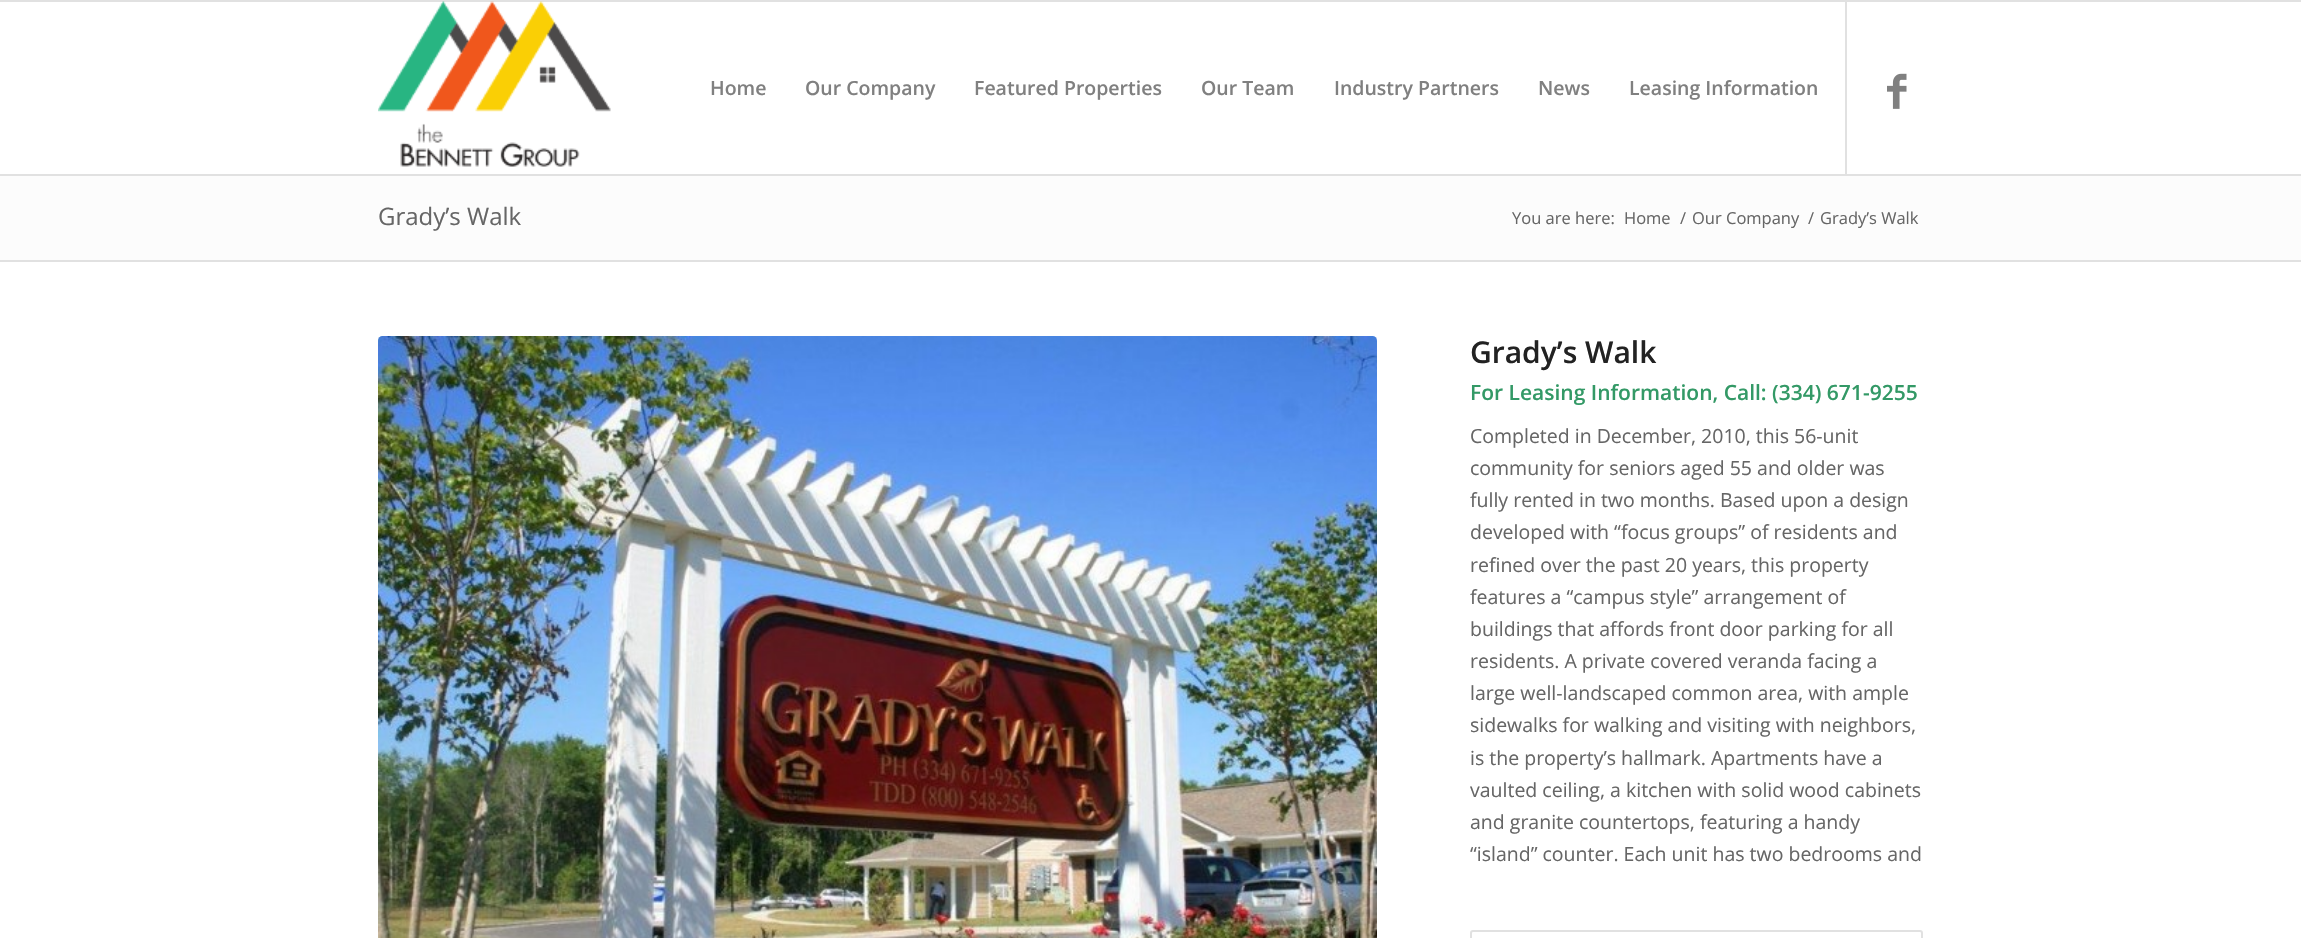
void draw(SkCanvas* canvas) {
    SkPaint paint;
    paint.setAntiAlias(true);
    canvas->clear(0xFFFFFFFF);
    paint.setColor(0xFFE1E1E1);
    canvas->drawRect(SkRect::MakeXYWH(0, 0, 2301, 2), paint);
    canvas->drawRect(SkRect::MakeXYWH(0, 174, 2301, 2), paint);
    canvas->drawImageRect(SkImages::DeferredFromEncodedData(SkData::MakeFromFileName("img1.png")), SkRect::MakeXYWH(378, 1, 233, 166), SkSamplingOptions());
    canvas->drawRect(SkRect::MakeXYWH(1845, 2, 2, 172), paint);
    SkFont font1(fontMgr->matchFamilyStyle("Open Sans", SkFontStyle(600, SkFontStyle::kNormal_Width, SkFontStyle::kUpright_Slant)), 19.5f);
    font1.setSubpixel(true);
    paint.setColor(0xFF808080);
    canvas->drawString("Home", 710, 95, font1, paint);
    canvas->drawString("Our Company", 805, 95, font1, paint);
    canvas->drawString("Featured Properties", 974, 95, font1, paint);
    canvas->drawString("Our Team", 1201, 95, font1, paint);
    canvas->drawString("Industry Partners", 1334, 95, font1, paint);
    canvas->drawString("News", 1538, 95, font1, paint);
    canvas->drawString("Leasing Information", 1629, 95, font1, paint);
    canvas->drawImageRect(SkImages::DeferredFromEncodedData(SkData::MakeFromFileName("img2.png")), SkRect::MakeXYWH(1887, 73, 20, 36), SkSamplingOptions());
    paint.setColor(0xFFFCFCFC);
    canvas->drawRect(SkRect::MakeXYWH(0, 176, 2301, 84), paint);
    SkFont font2(fontMgr->matchFamilyStyle("Open Sans", SkFontStyle::Normal()), 24);
    font2.setSubpixel(true);
    paint.setColor(0xFF666666);
    canvas->drawString("Grady’s Walk", 378, 225, font2, paint);
    SkFont font3(fontMgr->matchFamilyStyle("Open Sans", SkFontStyle::Normal()), 16.5f);
    font3.setSubpixel(true);
    canvas->drawString("You are here:", 1512, 224, font3, paint);
    canvas->drawString("Home", 1624, 224, font3, paint);
    canvas->drawString("/", 1680, 224, font3, paint);
    canvas->drawString("Our Company", 1692, 224, font3, paint);
    canvas->drawString("/", 1808, 224, font3, paint);
    canvas->drawString("Grady’s Walk", 1820, 224, font3, paint);
    paint.setColor(0xFFE1E1E1);
    canvas->drawRect(SkRect::MakeXYWH(0, 260, 2301, 2), paint);
    canvas->drawImageRect(SkImages::DeferredFromEncodedData(SkData::MakeFromFileName("img3.png")), SkRect::MakeXYWH(378, 336, 999, 602), SkSamplingOptions());
    SkFont font4(fontMgr->matchFamilyStyle("Open Sans", SkFontStyle(600, SkFontStyle::kNormal_Width, SkFontStyle::kUpright_Slant)), 30);
    font4.setSubpixel(true);
    paint.setColor(0xFF222222);
    canvas->drawString("Grady’s Walk", 1470, 363, font4, paint);
    SkFont font5(fontMgr->matchFamilyStyle("Open Sans", SkFontStyle(600, SkFontStyle::kNormal_Width, SkFontStyle::kUpright_Slant)), 21);
    font5.setSubpixel(true);
    paint.setColor(0xFF339966);
    canvas->drawString("For Leasing Information, Call: (334) 671-9255", 1470, 400, font5, paint);
    SkFont font6(fontMgr->matchFamilyStyle("Open Sans", SkFontStyle::Normal()), 19.5f);
    font6.setSubpixel(true);
    paint.setColor(0xFF666666);
    canvas->drawString("Completed in December, 2010, this 56-unit", 1470, 443, font6, paint);
    canvas->drawString("community for seniors aged 55 and older was", 1470, 475, font6, paint);
    canvas->drawString("fully rented in two months. Based upon a design", 1470, 507, font6, paint);
    canvas->drawString("developed with “focus groups” of residents and", 1470, 539, font6, paint);
    canvas->drawString("refined over the past 20 years, this property", 1470, 572, font6, paint);
    canvas->drawString("features a “campus style” arrangement of", 1470, 604, font6, paint);
    canvas->drawString("buildings that affords front door parking for all", 1470, 636, font6, paint);
    canvas->drawString("residents. A private covered veranda facing a", 1470, 668, font6, paint);
    canvas->drawString("large well-landscaped common area, with ample", 1470, 700, font6, paint);
    canvas->drawString("sidewalks for walking and visiting with neighbors,", 1470, 732, font6, paint);
    canvas->drawString("is the property’s hallmark. Apartments have a", 1470, 765, font6, paint);
    canvas->drawString("vaulted ceiling, a kitchen with solid wood cabinets", 1470, 797, font6, paint);
    canvas->drawString("and granite countertops, featuring a handy", 1470, 829, font6, paint);
    canvas->drawString("“island” counter. Each unit has two bedrooms and", 1470, 861, font6, paint);
    paint.setStyle(SkPaint::kStroke_Style);
    paint.setStrokeWidth(2);
    paint.setColor(0xFFE1E1E1);
    canvas->drawPath(SkPathBuilder().moveTo(1473, 931).lineTo(1920, 931).cubicTo(1921, 931, 1922, 932, 1922, 933).lineTo(1922, 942).lineTo(1471, 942).lineTo(1471, 933).cubicTo(1471, 932, 1472, 931, 1473, 931).close().detach(), paint);
}
